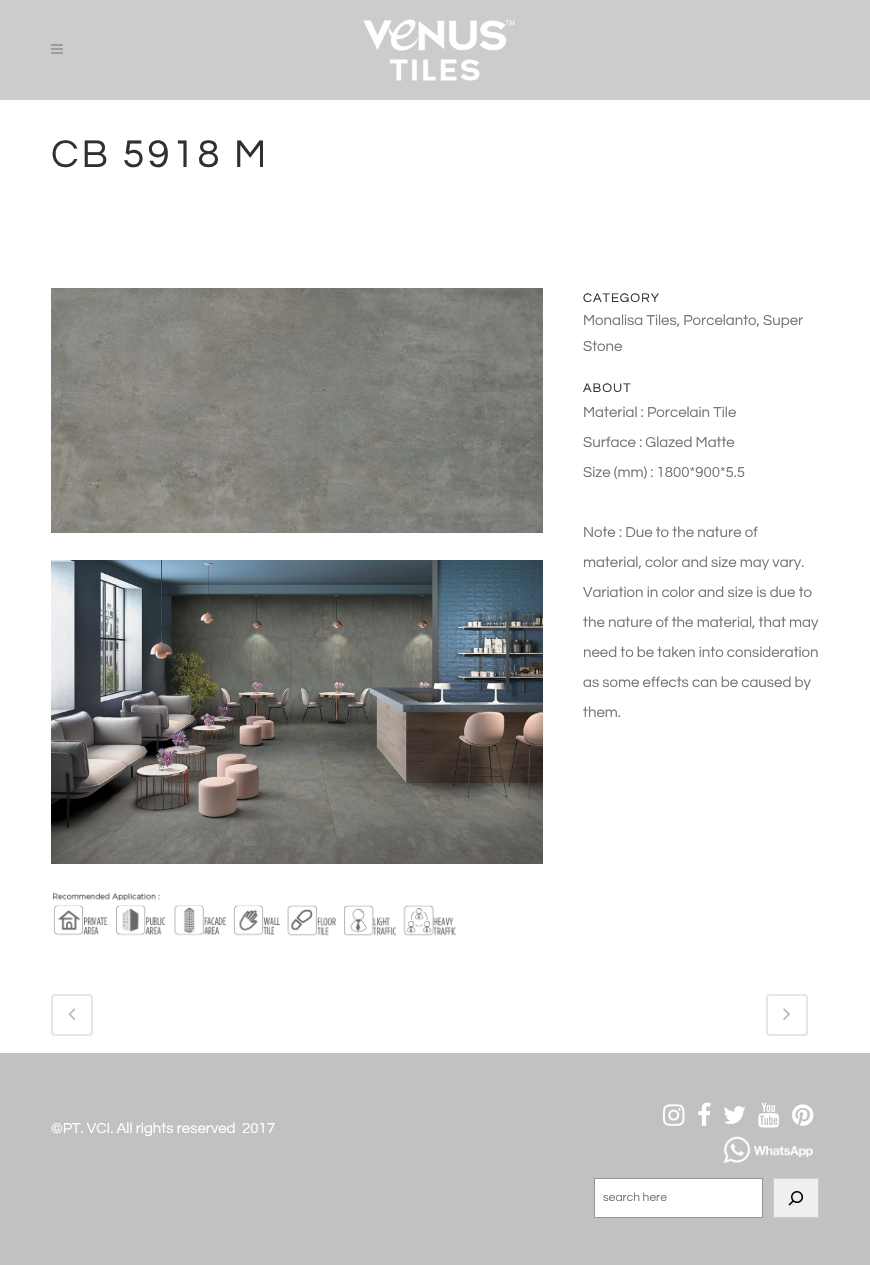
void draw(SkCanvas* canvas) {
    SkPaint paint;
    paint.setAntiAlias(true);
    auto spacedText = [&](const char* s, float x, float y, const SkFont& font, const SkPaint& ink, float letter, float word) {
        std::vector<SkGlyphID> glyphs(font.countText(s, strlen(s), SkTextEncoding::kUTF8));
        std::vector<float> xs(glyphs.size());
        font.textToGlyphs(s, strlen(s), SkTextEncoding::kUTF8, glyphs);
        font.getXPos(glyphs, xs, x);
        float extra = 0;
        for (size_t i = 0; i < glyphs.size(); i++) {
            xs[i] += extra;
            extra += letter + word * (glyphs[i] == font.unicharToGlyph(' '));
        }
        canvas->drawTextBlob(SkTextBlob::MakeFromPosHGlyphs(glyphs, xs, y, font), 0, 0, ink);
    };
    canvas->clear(0xFFFFFFFF);
    paint.setColor(0xFFCCCCCC);
    canvas->drawRect(SkRect::MakeXYWH(0, 0, 870, 100), paint);
    canvas->drawImageRect(SkImages::DeferredFromEncodedData(SkData::MakeFromFileName("img1.png")), SkRect::MakeXYWH(51, 44, 12, 10), SkSamplingOptions());
    canvas->drawImageRect(SkImages::DeferredFromEncodedData(SkData::MakeFromFileName("img2.png")), SkRect::MakeXYWH(363, 19, 152, 62), SkSamplingOptions());
    SkFont font1(fontMgr->matchFamilyStyle("Questrial", SkFontStyle::Normal()), 40);
    font1.setSubpixel(true);
    paint.setColor(0xFF303030);
    spacedText("CB 5918 M", 51, 167, font1, paint, 3, 0);
    canvas->drawImageRect(SkImages::DeferredFromEncodedData(SkData::MakeFromFileName("img3.png")), SkRect::MakeXYWH(51, 288, 492, 245), SkSamplingOptions());
    canvas->drawImageRect(SkImages::DeferredFromEncodedData(SkData::MakeFromFileName("img4.png")), SkRect::MakeXYWH(51, 560, 492, 304), SkSamplingOptions());
    canvas->drawImageRect(SkImages::DeferredFromEncodedData(SkData::MakeFromFileName("img5.png")), SkRect::MakeXYWH(52, 892, 405, 44), SkSamplingOptions());
    SkFont font2(fontMgr->matchFamilyStyle("Questrial", SkFontStyle::Normal()), 13);
    font2.setSubpixel(true);
    spacedText("CATEGORY", 583, 302, font2, paint, 1, 0);
    SkFont font3(fontMgr->matchFamilyStyle("Questrial", SkFontStyle::Normal()), 15);
    font3.setSubpixel(true);
    paint.setColor(0xFF777777);
    canvas->drawString("Monalisa Tiles, Porcelanto, Super", 583, 325, font3, paint);
    canvas->drawString("Stone", 583, 351, font3, paint);
    paint.setColor(0xFF303030);
    spacedText("ABOUT", 583, 392, font2, paint, 1, 0);
    paint.setColor(0xFF777777);
    canvas->drawString("Material : Porcelain Tile", 583, 417, font3, paint);
    canvas->drawString("Surface : Glazed Matte", 583, 447, font3, paint);
    canvas->drawString("Size (mm) : 1800*900*5.5", 583, 477, font3, paint);
    canvas->drawString("Note : Due to the nature of", 583, 537, font3, paint);
    canvas->drawString("material, color and size may vary.", 583, 567, font3, paint);
    canvas->drawString("Variation in color and size is due to", 583, 597, font3, paint);
    canvas->drawString("the nature of the material, that may", 583, 627, font3, paint);
    canvas->drawString("need to be taken into consideration", 583, 657, font3, paint);
    canvas->drawString("as some effects can be caused by", 583, 687, font3, paint);
    canvas->drawString("them.", 583, 717, font3, paint);
    paint.setStyle(SkPaint::kStroke_Style);
    paint.setStrokeWidth(2);
    paint.setColor(0xFFE5E5E5);
    canvas->drawRoundRect(SkRect::MakeXYWH(52, 995, 40, 40), 3, 3, paint);
    canvas->drawImageRect(SkImages::DeferredFromEncodedData(SkData::MakeFromFileName("img6.png")), SkRect::MakeXYWH(68, 1008, 8, 12), SkSamplingOptions());
    canvas->drawRoundRect(SkRect::MakeXYWH(767, 995, 40, 40), 3, 3, paint);
    canvas->drawImageRect(SkImages::DeferredFromEncodedData(SkData::MakeFromFileName("img7.png")), SkRect::MakeXYWH(783, 1008, 7, 12), SkSamplingOptions());
    paint.setStyle(SkPaint::kFill_Style);
    paint.setColor(0xFFC1C1C1);
    canvas->drawRect(SkRect::MakeXYWH(0, 1053, 870, 212), paint);
    paint.setColor(0xFFFFFFFF);
    canvas->drawString("©PT. VCI. All rights reserved  2017", 51, 1133, font3, paint);
    canvas->drawImageRect(SkImages::DeferredFromEncodedData(SkData::MakeFromFileName("img8.png")), SkRect::MakeXYWH(663, 1104, 22, 22), SkSamplingOptions());
    canvas->drawImageRect(SkImages::DeferredFromEncodedData(SkData::MakeFromFileName("img9.png")), SkRect::MakeXYWH(698, 1102, 13, 24), SkSamplingOptions());
    canvas->drawImageRect(SkImages::DeferredFromEncodedData(SkData::MakeFromFileName("img10.png")), SkRect::MakeXYWH(724, 1106, 22, 18), SkSamplingOptions());
    canvas->drawImageRect(SkImages::DeferredFromEncodedData(SkData::MakeFromFileName("img11.png")), SkRect::MakeXYWH(758, 1102, 21, 26), SkSamplingOptions());
    canvas->drawImageRect(SkImages::DeferredFromEncodedData(SkData::MakeFromFileName("img12.png")), SkRect::MakeXYWH(792, 1104, 22, 22), SkSamplingOptions());
    canvas->drawImageRect(SkImages::DeferredFromEncodedData(SkData::MakeFromFileName("img13.png")), SkRect::MakeXYWH(723, 1136, 90, 28), SkSamplingOptions());
    canvas->drawRect(SkRect::MakeXYWH(594.5f, 1178.5f, 168, 39), paint);
    paint.setStyle(SkPaint::kStroke_Style);
    paint.setStrokeWidth(1);
    paint.setColor(0xFF949494);
    canvas->drawRect(SkRect::MakeXYWH(594.5f, 1178.5f, 168, 39), paint);
    SkFont font4(fontMgr->matchFamilyStyle("Questrial", SkFontStyle::Normal()), 12);
    font4.setSubpixel(true);
    paint.setStyle(SkPaint::kFill_Style);
    paint.setColor(0xFF777777);
    canvas->drawString("search here", 603, 1201, font4, paint);
    paint.setColor(0xFFEFEFEF);
    canvas->drawRect(SkRect::MakeXYWH(773.5f, 1178.5f, 45, 39), paint);
    paint.setStyle(SkPaint::kStroke_Style);
    paint.setColor(0xFFCCCCCC);
    canvas->drawRect(SkRect::MakeXYWH(773.5f, 1178.5f, 45, 39), paint);
    canvas->drawImageRect(SkImages::DeferredFromEncodedData(SkData::MakeFromFileName("img14.png")), SkRect::MakeXYWH(788, 1191, 16, 15), SkSamplingOptions());
}
